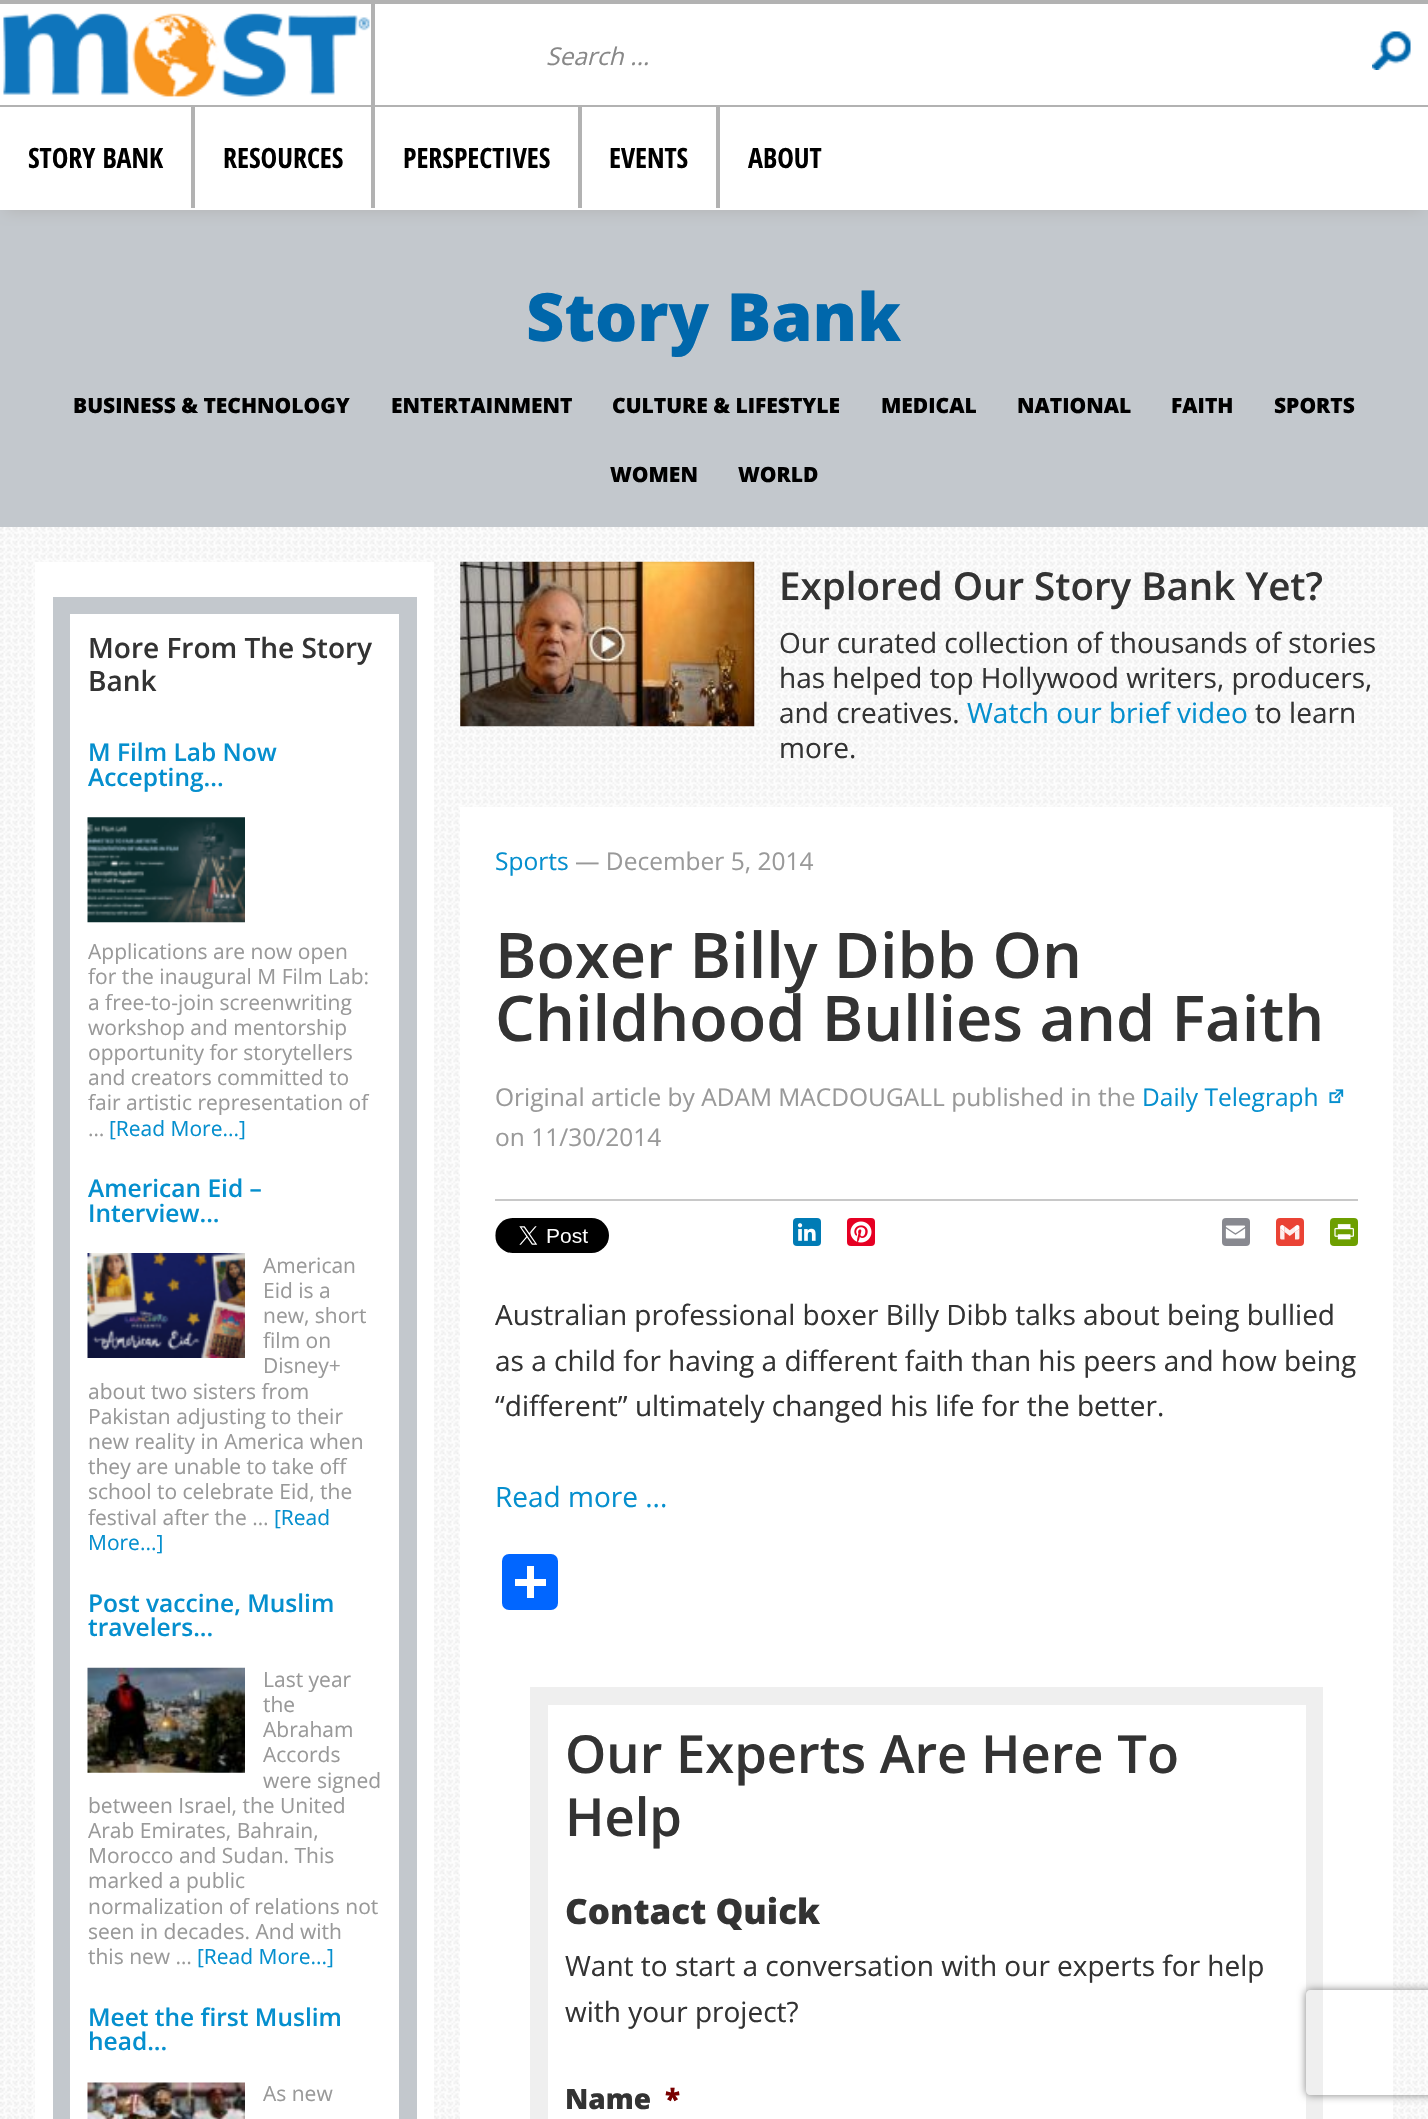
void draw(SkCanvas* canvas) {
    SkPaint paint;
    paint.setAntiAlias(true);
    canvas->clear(0xFFFFFFFF);
    paint.setColor(0xFFC3C8CD);
    canvas->drawRect(SkRect::MakeXYWH(0, 210, 1428, 317), paint);
    canvas->save();
    canvas->clipRect(SkRect::MakeXYWH(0, 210, 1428, 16));
    paint.setColor(0xFFB2B2B2);
    paint.setMaskFilter(SkMaskFilter::MakeBlur(kNormal_SkBlurStyle, 8));
    canvas->drawRect(SkRect::MakeXYWH(5, 11, 1418, 199), paint);
    paint.setMaskFilter(nullptr);
    canvas->restore();
    canvas->drawRect(SkRect::MakeXYWH(0, 0, 1428, 4), paint);
    canvas->drawImageRect(SkImages::DeferredFromEncodedData(SkData::MakeFromFileName("img1.png")), SkRect::MakeXYWH(3, 13, 367, 84), SkSamplingOptions());
    canvas->drawRect(SkRect::MakeXYWH(371, 4, 4, 101), paint);
    canvas->drawImageRect(SkImages::DeferredFromEncodedData(SkData::MakeFromFileName("img2.png")), SkRect::MakeXYWH(1372, 31, 39, 39), SkSamplingOptions());
    SkFont font1(fontMgr->matchFamilyStyle("Open Sans", SkFontStyle::Italic()), 24.5f);
    font1.setSubpixel(true);
    paint.setColor(0xFF888888);
    canvas->drawString("Search ...", 546, 65, font1, paint);
    paint.setColor(0xFFB2B2B2);
    canvas->drawRect(SkRect::MakeXYWH(0, 105, 1428, 2), paint);
    canvas->drawRect(SkRect::MakeXYWH(191, 107, 4, 101), paint);
    SkFont font2(fontMgr->matchFamilyStyle("Open Sans Condensed", SkFontStyle::Bold()), 28);
    font2.setSubpixel(true);
    paint.setColor(0xFF000000);
    canvas->drawString("STORY BANK", 28, 168, font2, paint);
    paint.setColor(0xFFB2B2B2);
    canvas->drawRect(SkRect::MakeXYWH(371, 107, 4, 101), paint);
    paint.setColor(0xFF000000);
    canvas->drawString("RESOURCES", 223, 168, font2, paint);
    paint.setColor(0xFFB2B2B2);
    canvas->drawRect(SkRect::MakeXYWH(578, 107, 4, 101), paint);
    paint.setColor(0xFF000000);
    canvas->drawString("PERSPECTIVES", 403, 168, font2, paint);
    paint.setColor(0xFFB2B2B2);
    canvas->drawRect(SkRect::MakeXYWH(716, 107, 4, 101), paint);
    paint.setColor(0xFF000000);
    canvas->drawString("EVENTS", 609, 168, font2, paint);
    canvas->drawString("ABOUT", 748, 168, font2, paint);
    SkFont font3(fontMgr->matchFamilyStyle("Open Sans", SkFontStyle(800, SkFontStyle::kNormal_Width, SkFontStyle::kUpright_Slant)), 66.5f);
    font3.setSubpixel(true);
    paint.setColor(0xFF0067AB);
    canvas->drawString("Story Bank", 526, 341, font3, paint);
    SkFont font4(fontMgr->matchFamilyStyle("Open Sans", SkFontStyle(800, SkFontStyle::kNormal_Width, SkFontStyle::kUpright_Slant)), 21);
    font4.setSubpixel(true);
    paint.setColor(0xFF000000);
    canvas->drawString("BUSINESS & TECHNOLOGY", 73, 413, font4, paint);
    canvas->drawString("ENTERTAINMENT", 391, 413, font4, paint);
    canvas->drawString("CULTURE & LIFESTYLE", 612, 413, font4, paint);
    canvas->drawString("MEDICAL", 881, 413, font4, paint);
    canvas->drawString("NATIONAL", 1017, 413, font4, paint);
    canvas->drawString("FAITH", 1171, 413, font4, paint);
    canvas->drawString("SPORTS", 1274, 413, font4, paint);
    canvas->drawString("WOMEN", 610, 482, font4, paint);
    canvas->drawString("WORLD", 738, 482, font4, paint);
    canvas->drawImageRect(SkImages::DeferredFromEncodedData(SkData::MakeFromFileName("img3.png")), SkRect::MakeXYWH(0, 527, 1428, 1592), SkSamplingOptions());
    paint.setColor(0xFFFFFFFF);
    canvas->drawRect(SkRect::MakeXYWH(35, 562, 399, 1557), paint);
    paint.setColor(0xFFC3C8CD);
    canvas->drawRect(SkRect::MakeXYWH(53, 597, 364, 1522), paint);
    paint.setColor(0xFFFFFFFF);
    canvas->drawRect(SkRect::MakeXYWH(70, 614, 329, 1505), paint);
    SkFont font5(fontMgr->matchFamilyStyle("Open Sans", SkFontStyle(600, SkFontStyle::kNormal_Width, SkFontStyle::kUpright_Slant)), 28);
    font5.setSubpixel(true);
    paint.setColor(0xFF333333);
    canvas->drawString("More From The Story", 88, 658, font5, paint);
    canvas->drawString("Bank", 88, 691, font5, paint);
    SkFont font6(fontMgr->matchFamilyStyle("Open Sans", SkFontStyle(600, SkFontStyle::kNormal_Width, SkFontStyle::kUpright_Slant)), 24.5f);
    font6.setSubpixel(true);
    paint.setColor(0xFF058FCE);
    canvas->drawString("M Film Lab Now", 88, 761, font6, paint);
    canvas->drawString("Accepting...", 88, 786, font6, paint);
    canvas->drawImageRect(SkImages::DeferredFromEncodedData(SkData::MakeFromFileName("img4.png")), SkRect::MakeXYWH(87, 817, 158, 106), SkSamplingOptions());
    SkFont font7(fontMgr->matchFamilyStyle("Open Sans", SkFontStyle::Normal()), 21);
    font7.setSubpixel(true);
    paint.setColor(0xFF999999);
    canvas->drawString("Applications are now open", 88, 959, font7, paint);
    canvas->drawString("for the inaugural M Film Lab:", 88, 984, font7, paint);
    canvas->drawString("a free-to-join screenwriting", 88, 1010, font7, paint);
    canvas->drawString("workshop and mentorship", 88, 1035, font7, paint);
    canvas->drawString("opportunity for storytellers", 88, 1060, font7, paint);
    canvas->drawString("and creators committed to", 88, 1085, font7, paint);
    canvas->drawString("fair artistic representation of", 88, 1110, font7, paint);
    canvas->drawString("…", 88, 1136, font7, paint);
    paint.setColor(0xFF058FCE);
    canvas->drawString("[Read More...]", 109, 1136, font7, paint);
    canvas->drawString("American Eid –", 88, 1197, font6, paint);
    canvas->drawString("Interview...", 88, 1222, font6, paint);
    canvas->drawImageRect(SkImages::DeferredFromEncodedData(SkData::MakeFromFileName("img5.png")), SkRect::MakeXYWH(87, 1253, 158, 105), SkSamplingOptions());
    paint.setColor(0xFF999999);
    canvas->drawString("American", 263, 1273, font7, paint);
    canvas->drawString("Eid is a", 263, 1298, font7, paint);
    canvas->drawString("new, short", 263, 1323, font7, paint);
    canvas->drawString("film on", 263, 1348, font7, paint);
    canvas->drawString("Disney+", 263, 1373, font7, paint);
    canvas->drawString("about two sisters from", 88, 1399, font7, paint);
    canvas->drawString("Pakistan adjusting to their", 88, 1424, font7, paint);
    canvas->drawString("new reality in America when", 88, 1449, font7, paint);
    canvas->drawString("they are unable to take off", 88, 1474, font7, paint);
    canvas->drawString("school to celebrate Eid, the", 88, 1499, font7, paint);
    canvas->drawString("festival after the …", 88, 1525, font7, paint);
    paint.setColor(0xFF058FCE);
    canvas->drawString("[Read", 274, 1525, font7, paint);
    canvas->drawString("More...]", 88, 1550, font7, paint);
    canvas->drawString("Post vaccine, Muslim", 88, 1612, font6, paint);
    canvas->drawString("travelers...", 88, 1636, font6, paint);
    canvas->drawImageRect(SkImages::DeferredFromEncodedData(SkData::MakeFromFileName("img6.png")), SkRect::MakeXYWH(87, 1667, 158, 106), SkSamplingOptions());
    paint.setColor(0xFF999999);
    canvas->drawString("Last year", 263, 1687, font7, paint);
    canvas->drawString("the", 263, 1712, font7, paint);
    canvas->drawString("Abraham", 263, 1737, font7, paint);
    canvas->drawString("Accords", 263, 1762, font7, paint);
    canvas->drawString("were signed", 263, 1788, font7, paint);
    canvas->drawString("between Israel, the United", 88, 1813, font7, paint);
    canvas->drawString("Arab Emirates, Bahrain,", 88, 1838, font7, paint);
    canvas->drawString("Morocco and Sudan. This", 88, 1863, font7, paint);
    canvas->drawString("marked a public", 88, 1888, font7, paint);
    canvas->drawString("normalization of relations not", 88, 1914, font7, paint);
    canvas->drawString("seen in decades. And with", 88, 1939, font7, paint);
    canvas->drawString("this new …", 88, 1964, font7, paint);
    paint.setColor(0xFF058FCE);
    canvas->drawString("[Read More...]", 197, 1964, font7, paint);
    canvas->drawString("Meet the first Muslim", 88, 2026, font6, paint);
    canvas->drawString("head...", 88, 2050, font6, paint);
    canvas->drawImageRect(SkImages::DeferredFromEncodedData(SkData::MakeFromFileName("img7.png")), SkRect::MakeXYWH(87, 2082, 158, 37), SkSamplingOptions());
    paint.setColor(0xFF999999);
    canvas->drawString("As new", 263, 2101, font7, paint);
    canvas->drawImageRect(SkImages::DeferredFromEncodedData(SkData::MakeFromFileName("img8.png")), SkRect::MakeXYWH(460, 561, 295, 166), SkSamplingOptions());
    SkFont font8(fontMgr->matchFamilyStyle("Open Sans", SkFontStyle(600, SkFontStyle::kNormal_Width, SkFontStyle::kUpright_Slant)), 38.5f);
    font8.setSubpixel(true);
    paint.setColor(0xFF333333);
    canvas->drawString("Explored Our Story Bank Yet?", 779, 600, font8, paint);
    SkFont font9(fontMgr->matchFamilyStyle("Open Sans", SkFontStyle::Normal()), 28);
    font9.setSubpixel(true);
    canvas->drawString("Our curated collection of thousands of stories", 779, 653, font9, paint);
    canvas->drawString("has helped top Hollywood writers, producers,", 779, 688, font9, paint);
    canvas->drawString("and creatives.", 779, 723, font9, paint);
    paint.setColor(0xFF058FCE);
    canvas->drawString("Watch our brief video", 967, 723, font9, paint);
    paint.setColor(0xFF333333);
    canvas->drawString("to learn", 1255, 723, font9, paint);
    canvas->drawString("more.", 779, 758, font9, paint);
    paint.setColor(0xFFFFFFFF);
    canvas->drawRect(SkRect::MakeXYWH(460, 807, 933, 1312), paint);
    SkFont font10(fontMgr->matchFamilyStyle("Open Sans", SkFontStyle::Normal()), 24.5f);
    font10.setSubpixel(true);
    paint.setColor(0xFF058FCE);
    canvas->drawString("Sports", 495, 870, font10, paint);
    paint.setColor(0xFF999999);
    canvas->drawString("— December 5, 2014", 575, 870, font10, paint);
    SkFont font11(fontMgr->matchFamilyStyle("Open Sans", SkFontStyle(600, SkFontStyle::kNormal_Width, SkFontStyle::kUpright_Slant)), 63);
    font11.setSubpixel(true);
    paint.setColor(0xFF333333);
    canvas->drawString("Boxer Billy Dibb On", 495, 978, font11, paint);
    canvas->drawString("Childhood Bullies and Faith", 495, 1041, font11, paint);
    paint.setColor(0xFF999999);
    canvas->drawString("Original article by ADAM MACDOUGALL published in the", 495, 1106, font10, paint);
    paint.setColor(0xFF058FCE);
    canvas->drawString("Daily Telegraph", 1142, 1106, font10, paint);
    canvas->drawImageRect(SkImages::DeferredFromEncodedData(SkData::MakeFromFileName("img9.png")), SkRect::MakeXYWH(1329, 1089, 15, 15), SkSamplingOptions());
    paint.setColor(0xFF999999);
    canvas->drawString("on 11/30/2014", 495, 1146, font10, paint);
    paint.setColor(0xFFC8C8C8);
    canvas->drawRect(SkRect::MakeXYWH(495, 1199, 863, 2), paint);
    canvas->drawImageRect(SkImages::DeferredFromEncodedData(SkData::MakeFromFileName("img10.png")), SkRect::MakeXYWH(495, 1218, 114, 35), SkSamplingOptions());
    paint.setColor(0xFF007BB5);
    canvas->drawRoundRect(SkRect::MakeXYWH(793, 1218, 28, 28), 4, 4, paint);
    canvas->drawImageRect(SkImages::DeferredFromEncodedData(SkData::MakeFromFileName("img11.png")), SkRect::MakeXYWH(797, 1223, 19, 18), SkSamplingOptions());
    paint.setColor(0xFFE60023);
    canvas->drawRoundRect(SkRect::MakeXYWH(847, 1218, 28, 28), 4, 4, paint);
    canvas->drawImageRect(SkImages::DeferredFromEncodedData(SkData::MakeFromFileName("img12.png")), SkRect::MakeXYWH(850, 1221, 22, 22), SkSamplingOptions());
    paint.setColor(0xFF888990);
    canvas->drawRoundRect(SkRect::MakeXYWH(1222, 1218, 28, 28), 4, 4, paint);
    canvas->drawImageRect(SkImages::DeferredFromEncodedData(SkData::MakeFromFileName("img13.png")), SkRect::MakeXYWH(1225, 1225, 21, 14), SkSamplingOptions());
    paint.setColor(0xFFEA4335);
    canvas->drawRoundRect(SkRect::MakeXYWH(1276, 1218, 28, 28), 4, 4, paint);
    canvas->drawImageRect(SkImages::DeferredFromEncodedData(SkData::MakeFromFileName("img14.png")), SkRect::MakeXYWH(1280, 1225, 20, 15), SkSamplingOptions());
    paint.setColor(0xFF6D9F00);
    canvas->drawRoundRect(SkRect::MakeXYWH(1330, 1218, 28, 28), 4, 4, paint);
    canvas->drawImageRect(SkImages::DeferredFromEncodedData(SkData::MakeFromFileName("img15.png")), SkRect::MakeXYWH(1334, 1224, 20, 16), SkSamplingOptions());
    paint.setColor(0xFF333333);
    canvas->drawString("Australian professional boxer Billy Dibb talks about being bullied", 495, 1325, font9, paint);
    canvas->drawString("as a child for having a different faith than his peers and how being", 495, 1371, font9, paint);
    canvas->drawString("“different” ultimately changed his life for the better.", 495, 1416, font9, paint);
    paint.setColor(0xFF058FCE);
    canvas->drawString("Read more ...", 495, 1507, font9, paint);
    paint.setColor(0xFF0166FF);
    canvas->drawRoundRect(SkRect::MakeXYWH(502, 1554, 56, 56), 7, 7, paint);
    paint.setColor(0xFFFFFFFF);
    canvas->drawRect(SkRect::MakeXYWH(527, 1566, 7, 32), paint);
    canvas->drawRect(SkRect::MakeXYWH(515, 1579, 31, 7), paint);
    paint.setColor(0xFFEFEFEF);
    canvas->drawRect(SkRect::MakeXYWH(530, 1687, 793, 432), paint);
    paint.setColor(0xFFFFFFFF);
    canvas->drawRect(SkRect::MakeXYWH(548, 1705, 758, 414), paint);
    SkFont font12(fontMgr->matchFamilyStyle("Open Sans", SkFontStyle(600, SkFontStyle::kNormal_Width, SkFontStyle::kUpright_Slant)), 52.5f);
    font12.setSubpixel(true);
    paint.setColor(0xFF333333);
    canvas->drawString("Our Experts Are Here To", 565, 1773, font12, paint);
    canvas->drawString("Help", 565, 1836, font12, paint);
    SkFont font13(fontMgr->matchFamilyStyle("Open Sans", SkFontStyle(800, SkFontStyle::kNormal_Width, SkFontStyle::kUpright_Slant)), 35);
    font13.setSubpixel(true);
    canvas->drawString("Contact Quick", 565, 1924, font13, paint);
    canvas->drawString("Want to start a conversation with our experts for help", 565, 1976, font9, paint);
    canvas->drawString("with your project?", 565, 2022, font9, paint);
    SkFont font14(fontMgr->matchFamilyStyle("Open Sans", SkFontStyle(800, SkFontStyle::kNormal_Width, SkFontStyle::kUpright_Slant)), 28);
    font14.setSubpixel(true);
    canvas->drawString("Name", 565, 2109, font14, paint);
    paint.setColor(0xFF790000);
    canvas->drawString("*", 665, 2109, font14, paint);
    canvas->save();
    canvas->clipPath(SkPathBuilder(SkPathFillType::kEvenOdd).moveTo(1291, 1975).lineTo(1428, 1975).lineTo(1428, 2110).lineTo(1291, 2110).close().moveTo(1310, 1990).lineTo(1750, 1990).cubicTo(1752, 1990, 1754, 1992, 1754, 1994).lineTo(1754, 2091).cubicTo(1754, 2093, 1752, 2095, 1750, 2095).lineTo(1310, 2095).cubicTo(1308, 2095, 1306, 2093, 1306, 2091).lineTo(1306, 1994).cubicTo(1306, 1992, 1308, 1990, 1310, 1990).close().detach(), true);
    paint.setColor(0xFF808080);
    paint.setMaskFilter(SkMaskFilter::MakeBlur(kNormal_SkBlurStyle, 4.5f));
    canvas->drawRoundRect(SkRect::MakeXYWH(1306, 1990, 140, 105), 4, 4, paint);
    paint.setMaskFilter(nullptr);
    canvas->restore();
}
